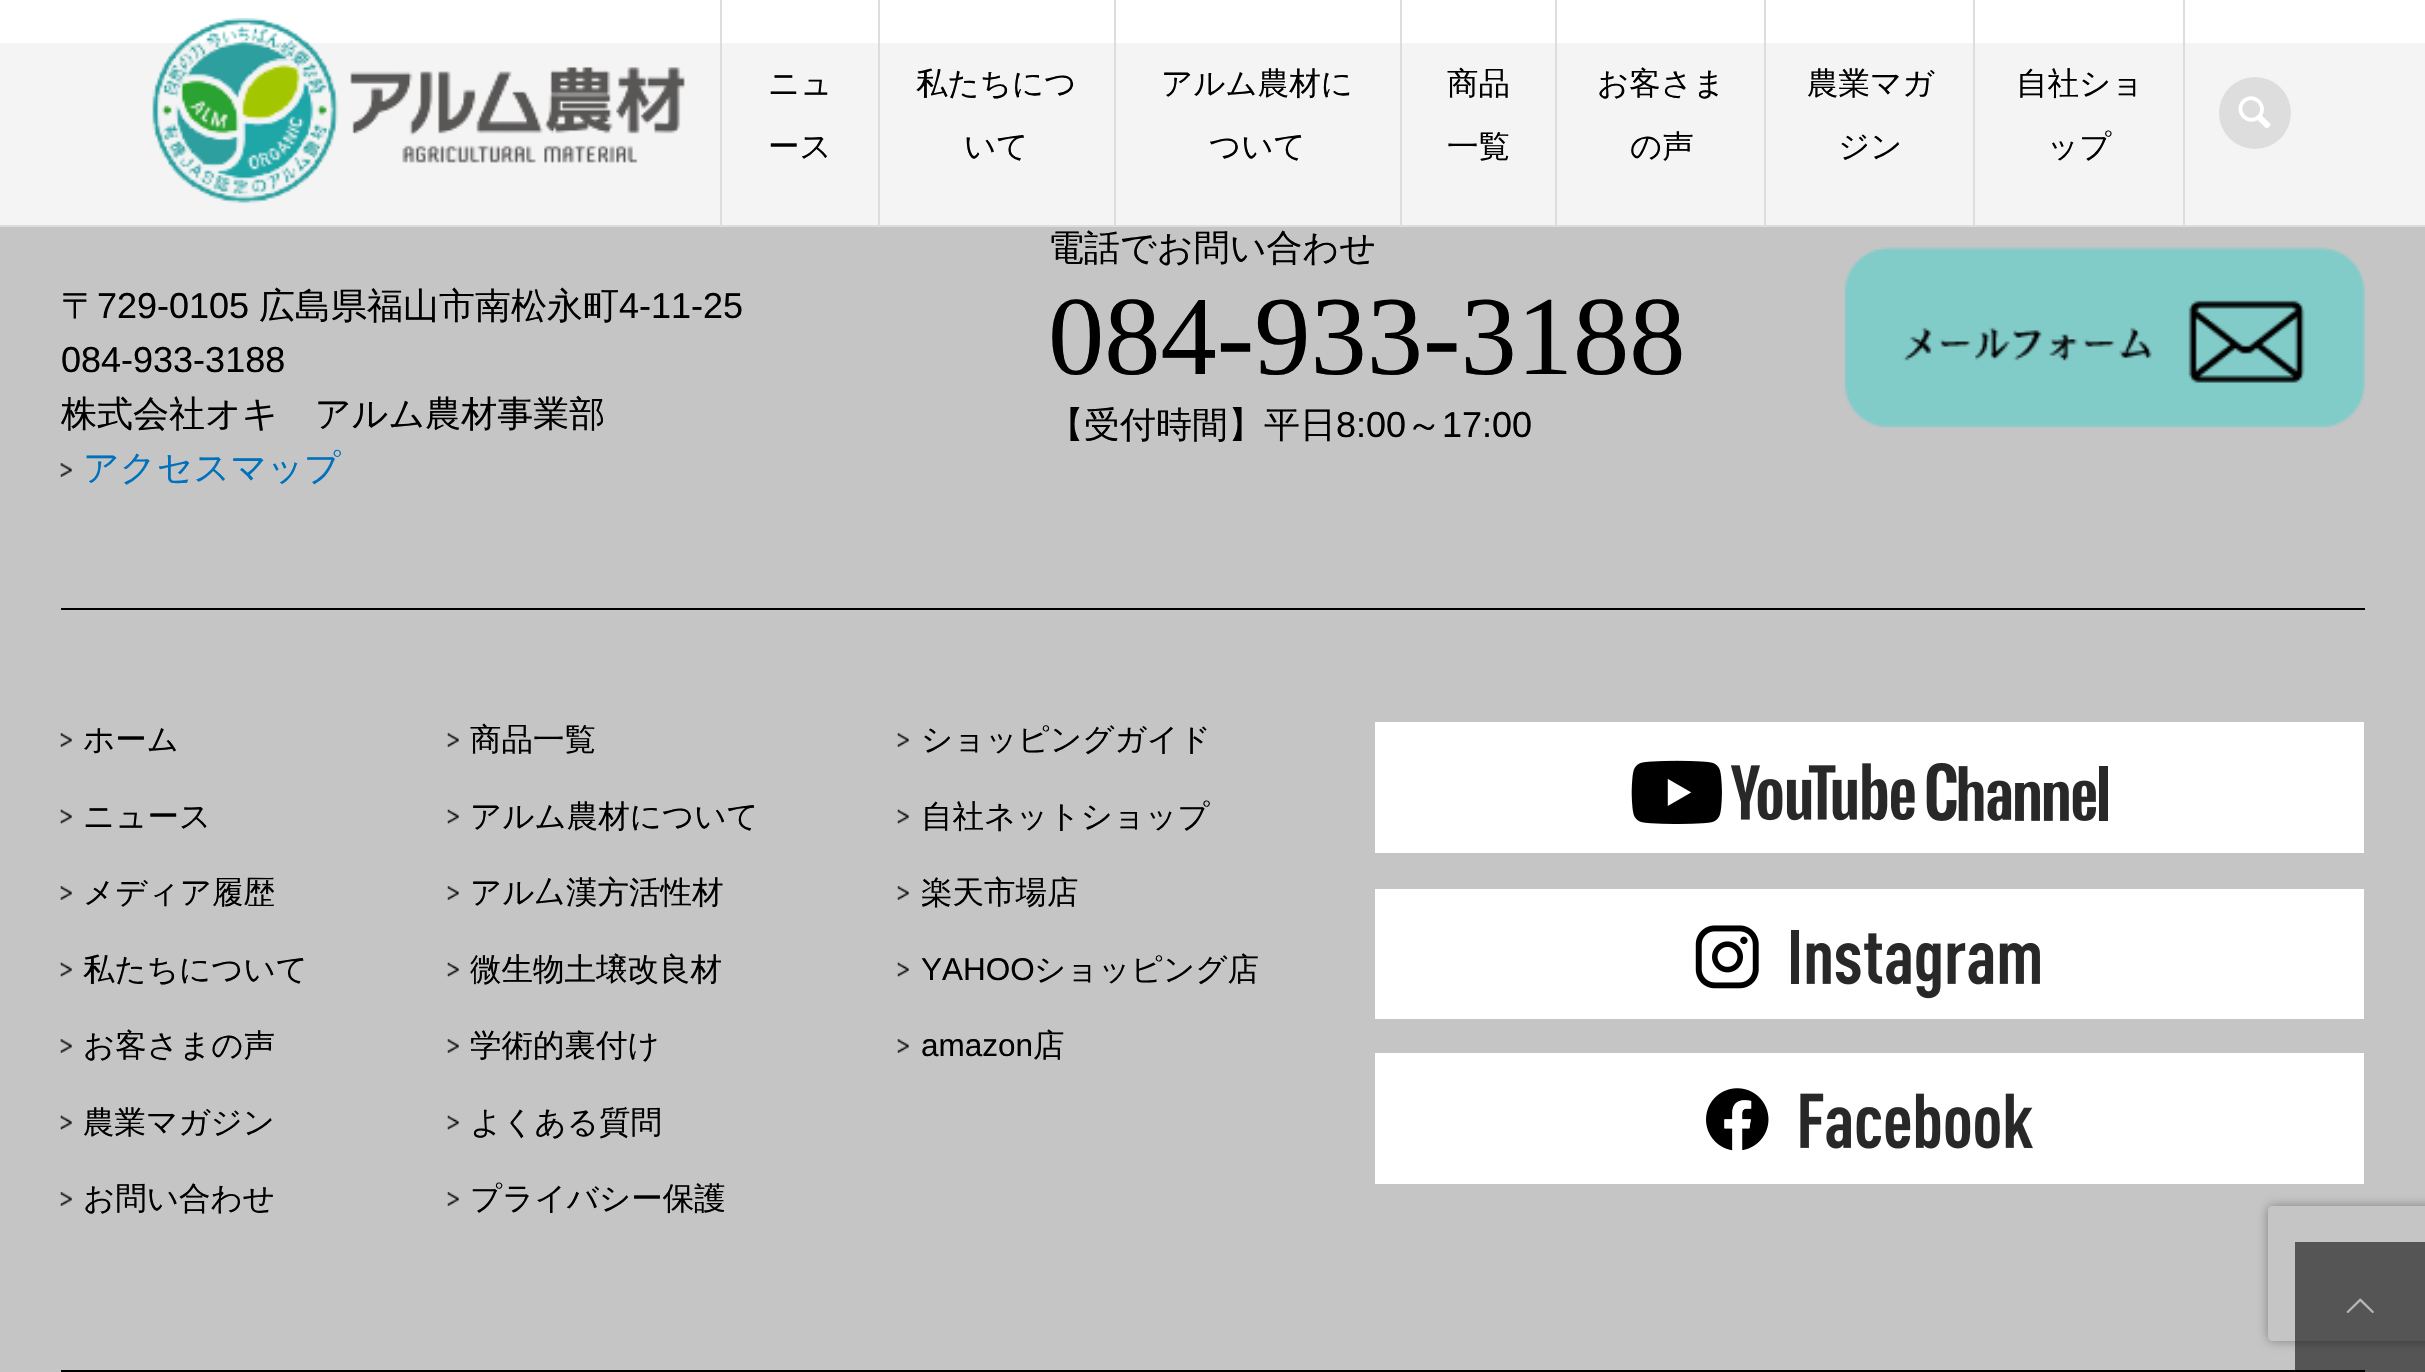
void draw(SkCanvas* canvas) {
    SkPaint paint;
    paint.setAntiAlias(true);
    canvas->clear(0xFFFFFFFF);
    paint.setColor(0xFFC5C5C5);
    canvas->drawRect(SkRect::MakeXYWH(0, 43, 2425, 1329), paint);
    paint.setColor(0xCCFFFFFF);
    canvas->drawRect(SkRect::MakeXYWH(0, 43, 2425, 182), paint);
    paint.setColor(0xFFDDDDDD);
    canvas->drawRect(SkRect::MakeXYWH(0, 225, 2425, 2), paint);
    canvas->drawImageRect(SkImages::DeferredFromEncodedData(SkData::MakeFromFileName("img1.png")), SkRect::MakeXYWH(152, 18, 533, 186), SkSamplingOptions());
    canvas->drawRect(SkRect::MakeXYWH(720, 0, 2, 225), paint);
    canvas->drawRect(SkRect::MakeXYWH(878, 0, 2, 227), paint);
    SkFont font1(fontMgr->matchFamilyStyle("WenQuanYi Zen Hei", SkFontStyle(500, SkFontStyle::kNormal_Width, SkFontStyle::kUpright_Slant)), 31.5f);
    font1.setSubpixel(true);
    paint.setColor(0xFF000000);
    canvas->drawString("ニュ", 768, 94, font1, paint);
    canvas->drawString("ース", 768, 157, font1, paint);
    paint.setColor(0xFFDDDDDD);
    canvas->drawRect(SkRect::MakeXYWH(1114, 0, 2, 227), paint);
    paint.setColor(0xFF000000);
    canvas->drawString("私たちにつ", 916, 94, font1, paint);
    canvas->drawString("いて", 964, 157, font1, paint);
    paint.setColor(0xFFDDDDDD);
    canvas->drawRect(SkRect::MakeXYWH(1400, 0, 2, 227), paint);
    paint.setColor(0xFF000000);
    canvas->drawString("アルム農材に", 1161, 94, font1, paint);
    canvas->drawString("ついて", 1209, 157, font1, paint);
    paint.setColor(0xFFDDDDDD);
    canvas->drawRect(SkRect::MakeXYWH(1555, 0, 2, 227), paint);
    paint.setColor(0xFF000000);
    canvas->drawString("商品", 1447, 94, font1, paint);
    canvas->drawString("一覧", 1447, 157, font1, paint);
    paint.setColor(0xFFDDDDDD);
    canvas->drawRect(SkRect::MakeXYWH(1764, 0, 2, 227), paint);
    paint.setColor(0xFF000000);
    canvas->drawString("お客さま", 1597, 94, font1, paint);
    canvas->drawString("の声", 1630, 157, font1, paint);
    paint.setColor(0xFFDDDDDD);
    canvas->drawRect(SkRect::MakeXYWH(1973, 0, 2, 227), paint);
    paint.setColor(0xFF000000);
    canvas->drawString("農業マガ", 1807, 94, font1, paint);
    canvas->drawString("ジン", 1838, 157, font1, paint);
    paint.setColor(0xFFDDDDDD);
    canvas->drawRect(SkRect::MakeXYWH(2183, 0, 2, 227), paint);
    paint.setColor(0xFF000000);
    canvas->drawString("自社ショ", 2016, 94, font1, paint);
    canvas->drawString("ップ", 2047, 157, font1, paint);
    paint.setColor(0xFFDDDDDD);
    canvas->drawCircle(2255, 113, 36, paint);
    canvas->drawImageRect(SkImages::DeferredFromEncodedData(SkData::MakeFromFileName("img2.png")), SkRect::MakeXYWH(2238, 96, 33, 33), SkSamplingOptions());
    paint.setColor(0xFF000000);
    canvas->drawRect(SkRect::MakeXYWH(61, 608, 2304, 2), paint);
    SkFont font2(fontMgr->matchFamilyStyle("WenQuanYi Zen Hei", SkFontStyle(500, SkFontStyle::kNormal_Width, SkFontStyle::kUpright_Slant)), 36);
    font2.setSubpixel(true);
    canvas->drawString("〒", 61, 318, font2, paint);
    SkFont font3(fontMgr->matchFamilyStyle("Liberation Sans", SkFontStyle::Normal()), 36);
    font3.setSubpixel(true);
    canvas->drawString("729-0105", 97, 318, font3, paint);
    canvas->drawString("広島県福山市南松永町", 259, 318, font2, paint);
    canvas->drawString("4-11-25", 619, 318, font3, paint);
    canvas->drawString("084-933-3188", 61, 372, font3, paint);
    canvas->drawString("株式会社オキ　アルム農材事業部", 61, 426, font2, paint);
    canvas->drawImageRect(SkImages::DeferredFromEncodedData(SkData::MakeFromFileName("img3.png")), SkRect::MakeXYWH(60, 463, 12, 14), SkSamplingOptions());
    paint.setColor(0xFF0071BC);
    canvas->drawString("アクセスマップ", 83, 480, font2, paint);
    paint.setColor(0xFF000000);
    canvas->drawString("電話でお問い合わせ", 1048, 260, font2, paint);
    SkFont font4(fontMgr->matchFamilyStyle("Liberation Serif", SkFontStyle::Normal()), 112.5f);
    font4.setSubpixel(true);
    canvas->drawString("084-933-3188", 1048, 374, font4, paint);
    canvas->drawString("【受付時間】平日", 1048, 437, font2, paint);
    canvas->drawString("8:00", 1336, 437, font3, paint);
    canvas->drawString("～", 1406, 437, font2, paint);
    canvas->drawString("17:00", 1442, 437, font3, paint);
    canvas->drawImageRect(SkImages::DeferredFromEncodedData(SkData::MakeFromFileName("img4.png")), SkRect::MakeXYWH(1844, 247, 521, 181), SkSamplingOptions());
    canvas->drawImageRect(SkImages::DeferredFromEncodedData(SkData::MakeFromFileName("img3.png")), SkRect::MakeXYWH(60, 733, 12, 14), SkSamplingOptions());
    canvas->drawString("ホーム", 83, 750, font1, paint);
    canvas->drawImageRect(SkImages::DeferredFromEncodedData(SkData::MakeFromFileName("img5.png")), SkRect::MakeXYWH(60, 809, 12, 15), SkSamplingOptions());
    canvas->drawString("ニュース", 83, 827, font1, paint);
    canvas->drawImageRect(SkImages::DeferredFromEncodedData(SkData::MakeFromFileName("img3.png")), SkRect::MakeXYWH(60, 886, 12, 14), SkSamplingOptions());
    canvas->drawString("メディア履歴", 83, 903, font1, paint);
    canvas->drawImageRect(SkImages::DeferredFromEncodedData(SkData::MakeFromFileName("img6.png")), SkRect::MakeXYWH(60, 962, 12, 15), SkSamplingOptions());
    canvas->drawString("私たちについて", 83, 980, font1, paint);
    canvas->drawImageRect(SkImages::DeferredFromEncodedData(SkData::MakeFromFileName("img3.png")), SkRect::MakeXYWH(60, 1039, 12, 14), SkSamplingOptions());
    canvas->drawString("お客さまの声", 83, 1056, font1, paint);
    canvas->drawImageRect(SkImages::DeferredFromEncodedData(SkData::MakeFromFileName("img6.png")), SkRect::MakeXYWH(60, 1115, 12, 15), SkSamplingOptions());
    canvas->drawString("農業マガジン", 83, 1133, font1, paint);
    canvas->drawImageRect(SkImages::DeferredFromEncodedData(SkData::MakeFromFileName("img3.png")), SkRect::MakeXYWH(60, 1192, 12, 14), SkSamplingOptions());
    canvas->drawString("お問い合わせ", 83, 1209, font1, paint);
    canvas->drawImageRect(SkImages::DeferredFromEncodedData(SkData::MakeFromFileName("img7.png")), SkRect::MakeXYWH(447, 733, 12, 14), SkSamplingOptions());
    canvas->drawString("商品一覧", 470, 750, font1, paint);
    canvas->drawImageRect(SkImages::DeferredFromEncodedData(SkData::MakeFromFileName("img8.png")), SkRect::MakeXYWH(447, 809, 12, 15), SkSamplingOptions());
    canvas->drawString("アルム農材について", 470, 827, font1, paint);
    canvas->drawImageRect(SkImages::DeferredFromEncodedData(SkData::MakeFromFileName("img7.png")), SkRect::MakeXYWH(447, 886, 12, 14), SkSamplingOptions());
    canvas->drawString("アル厶漢方活性材", 470, 903, font1, paint);
    canvas->drawImageRect(SkImages::DeferredFromEncodedData(SkData::MakeFromFileName("img9.png")), SkRect::MakeXYWH(447, 962, 12, 15), SkSamplingOptions());
    canvas->drawString("微生物土壌改良材", 470, 980, font1, paint);
    canvas->drawImageRect(SkImages::DeferredFromEncodedData(SkData::MakeFromFileName("img7.png")), SkRect::MakeXYWH(447, 1039, 12, 14), SkSamplingOptions());
    canvas->drawString("学術的裏付け", 470, 1056, font1, paint);
    canvas->drawImageRect(SkImages::DeferredFromEncodedData(SkData::MakeFromFileName("img9.png")), SkRect::MakeXYWH(447, 1115, 12, 15), SkSamplingOptions());
    canvas->drawString("よくある質問", 470, 1133, font1, paint);
    canvas->drawImageRect(SkImages::DeferredFromEncodedData(SkData::MakeFromFileName("img7.png")), SkRect::MakeXYWH(447, 1192, 12, 14), SkSamplingOptions());
    canvas->drawString("プライバシー保護", 470, 1209, font1, paint);
    canvas->drawImageRect(SkImages::DeferredFromEncodedData(SkData::MakeFromFileName("img7.png")), SkRect::MakeXYWH(897, 733, 12, 14), SkSamplingOptions());
    canvas->drawString("ショッピングガイド", 921, 750, font1, paint);
    canvas->drawImageRect(SkImages::DeferredFromEncodedData(SkData::MakeFromFileName("img8.png")), SkRect::MakeXYWH(897, 809, 12, 15), SkSamplingOptions());
    canvas->drawString("自社ネットショップ", 921, 827, font1, paint);
    canvas->drawImageRect(SkImages::DeferredFromEncodedData(SkData::MakeFromFileName("img7.png")), SkRect::MakeXYWH(897, 886, 12, 14), SkSamplingOptions());
    canvas->drawString("楽天市場店", 921, 903, font1, paint);
    canvas->drawImageRect(SkImages::DeferredFromEncodedData(SkData::MakeFromFileName("img9.png")), SkRect::MakeXYWH(897, 962, 12, 15), SkSamplingOptions());
    SkFont font5(fontMgr->matchFamilyStyle("Liberation Sans", SkFontStyle::Normal()), 31.5f);
    font5.setSubpixel(true);
    canvas->drawString("YAHOO", 921, 980, font5, paint);
    canvas->drawString("ショッピング店", 1034, 980, font1, paint);
    canvas->drawImageRect(SkImages::DeferredFromEncodedData(SkData::MakeFromFileName("img7.png")), SkRect::MakeXYWH(897, 1039, 12, 14), SkSamplingOptions());
    canvas->drawString("amazon", 921, 1056, font5, paint);
    canvas->drawString("店", 1033, 1056, font1, paint);
    canvas->drawImageRect(SkImages::DeferredFromEncodedData(SkData::MakeFromFileName("img10.png")), SkRect::MakeXYWH(1375, 722, 989, 131), SkSamplingOptions());
    canvas->drawImageRect(SkImages::DeferredFromEncodedData(SkData::MakeFromFileName("img11.png")), SkRect::MakeXYWH(1375, 889, 989, 130), SkSamplingOptions());
    canvas->drawImageRect(SkImages::DeferredFromEncodedData(SkData::MakeFromFileName("img12.png")), SkRect::MakeXYWH(1375, 1053, 989, 131), SkSamplingOptions());
    canvas->drawRect(SkRect::MakeXYWH(61, 1370, 2304, 2), paint);
    canvas->save();
    canvas->clipPath(SkPathBuilder(SkPathFillType::kEvenOdd).moveTo(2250, 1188).lineTo(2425, 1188).lineTo(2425, 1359).lineTo(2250, 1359).close().moveTo(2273, 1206).lineTo(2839, 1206).cubicTo(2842, 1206, 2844, 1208, 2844, 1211).lineTo(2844, 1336).cubicTo(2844, 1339, 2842, 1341, 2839, 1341).lineTo(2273, 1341).cubicTo(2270, 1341, 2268, 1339, 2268, 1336).lineTo(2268, 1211).cubicTo(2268, 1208, 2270, 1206, 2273, 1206).close().detach(), true);
    paint.setColor(0xFF808080);
    paint.setMaskFilter(SkMaskFilter::MakeBlur(kNormal_SkBlurStyle, 5.5f));
    canvas->drawRoundRect(SkRect::MakeXYWH(2268, 1206, 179, 135), 5, 5, paint);
    paint.setMaskFilter(nullptr);
    canvas->restore();
    paint.setColor(0x91000000);
    canvas->drawRect(SkRect::MakeXYWH(2295, 1242, 130, 130), paint);
    canvas->drawImageRect(SkImages::DeferredFromEncodedData(SkData::MakeFromFileName("img13.png")), SkRect::MakeXYWH(2346, 1298, 28, 15), SkSamplingOptions());
}
